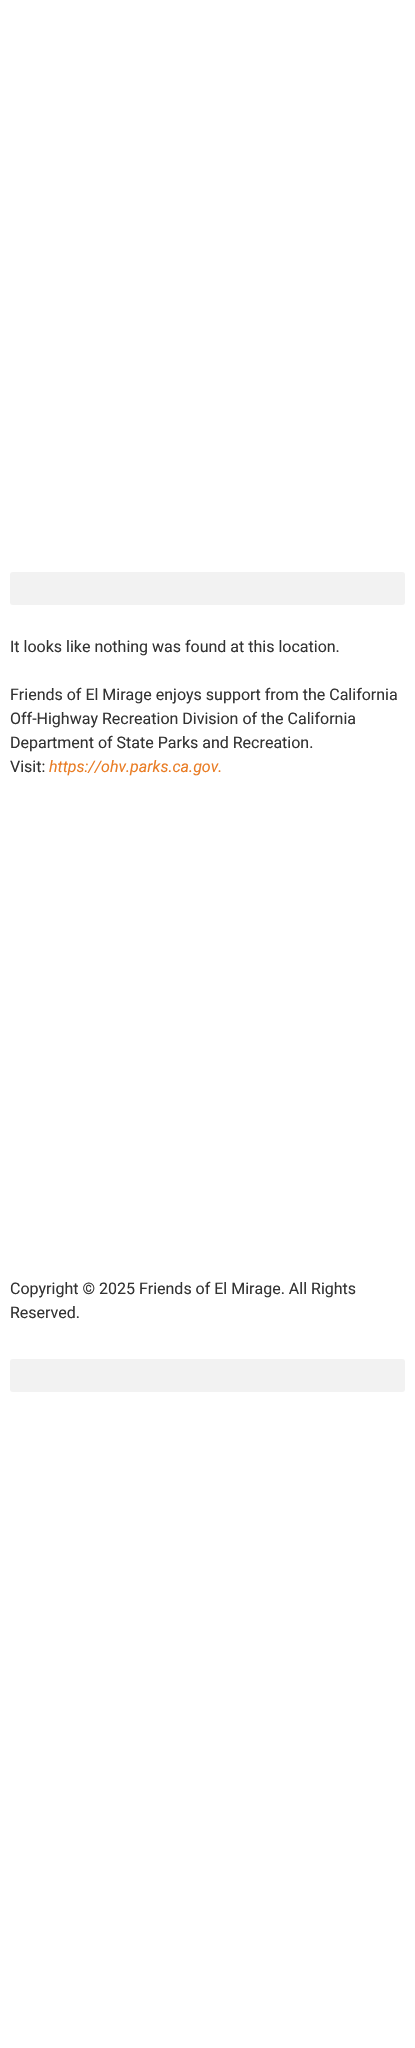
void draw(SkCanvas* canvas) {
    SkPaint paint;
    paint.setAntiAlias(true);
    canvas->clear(0xFFFFFFFF);
    paint.setColor(0xFFF2F2F2);
    canvas->drawRoundRect(SkRect::MakeXYWH(10, 572, 395, 33), 3, 3, paint);
    SkFont font1(fontMgr->matchFamilyStyle("Roboto", SkFontStyle::Normal()), 16);
    font1.setSubpixel(true);
    paint.setColor(0xFF333333);
    canvas->drawString("It looks like nothing was found at this location.", 10, 652, font1, paint);
    canvas->drawString("Friends of El Mirage enjoys support from the California", 10, 700, font1, paint);
    canvas->drawString("Off-Highway Recreation Division of the California", 10, 724, font1, paint);
    canvas->drawString("Department of State Parks and Recreation.", 10, 748, font1, paint);
    canvas->drawString("Visit:", 10, 772, font1, paint);
    SkFont font2(fontMgr->matchFamilyStyle("Roboto", SkFontStyle::Italic()), 16);
    font2.setSubpixel(true);
    paint.setColor(0xFFE97C24);
    canvas->drawString("https://ohv.parks.ca.gov.", 49, 772, font2, paint);
    paint.setColor(0xFF333333);
    canvas->drawString("Copyright © 2025 Friends of El Mirage. All Rights", 10, 1294, font1, paint);
    canvas->drawString("Reserved.", 10, 1318, font1, paint);
    paint.setColor(0xFFF2F2F2);
    canvas->drawRoundRect(SkRect::MakeXYWH(10, 1359, 395, 33), 3, 3, paint);
}
